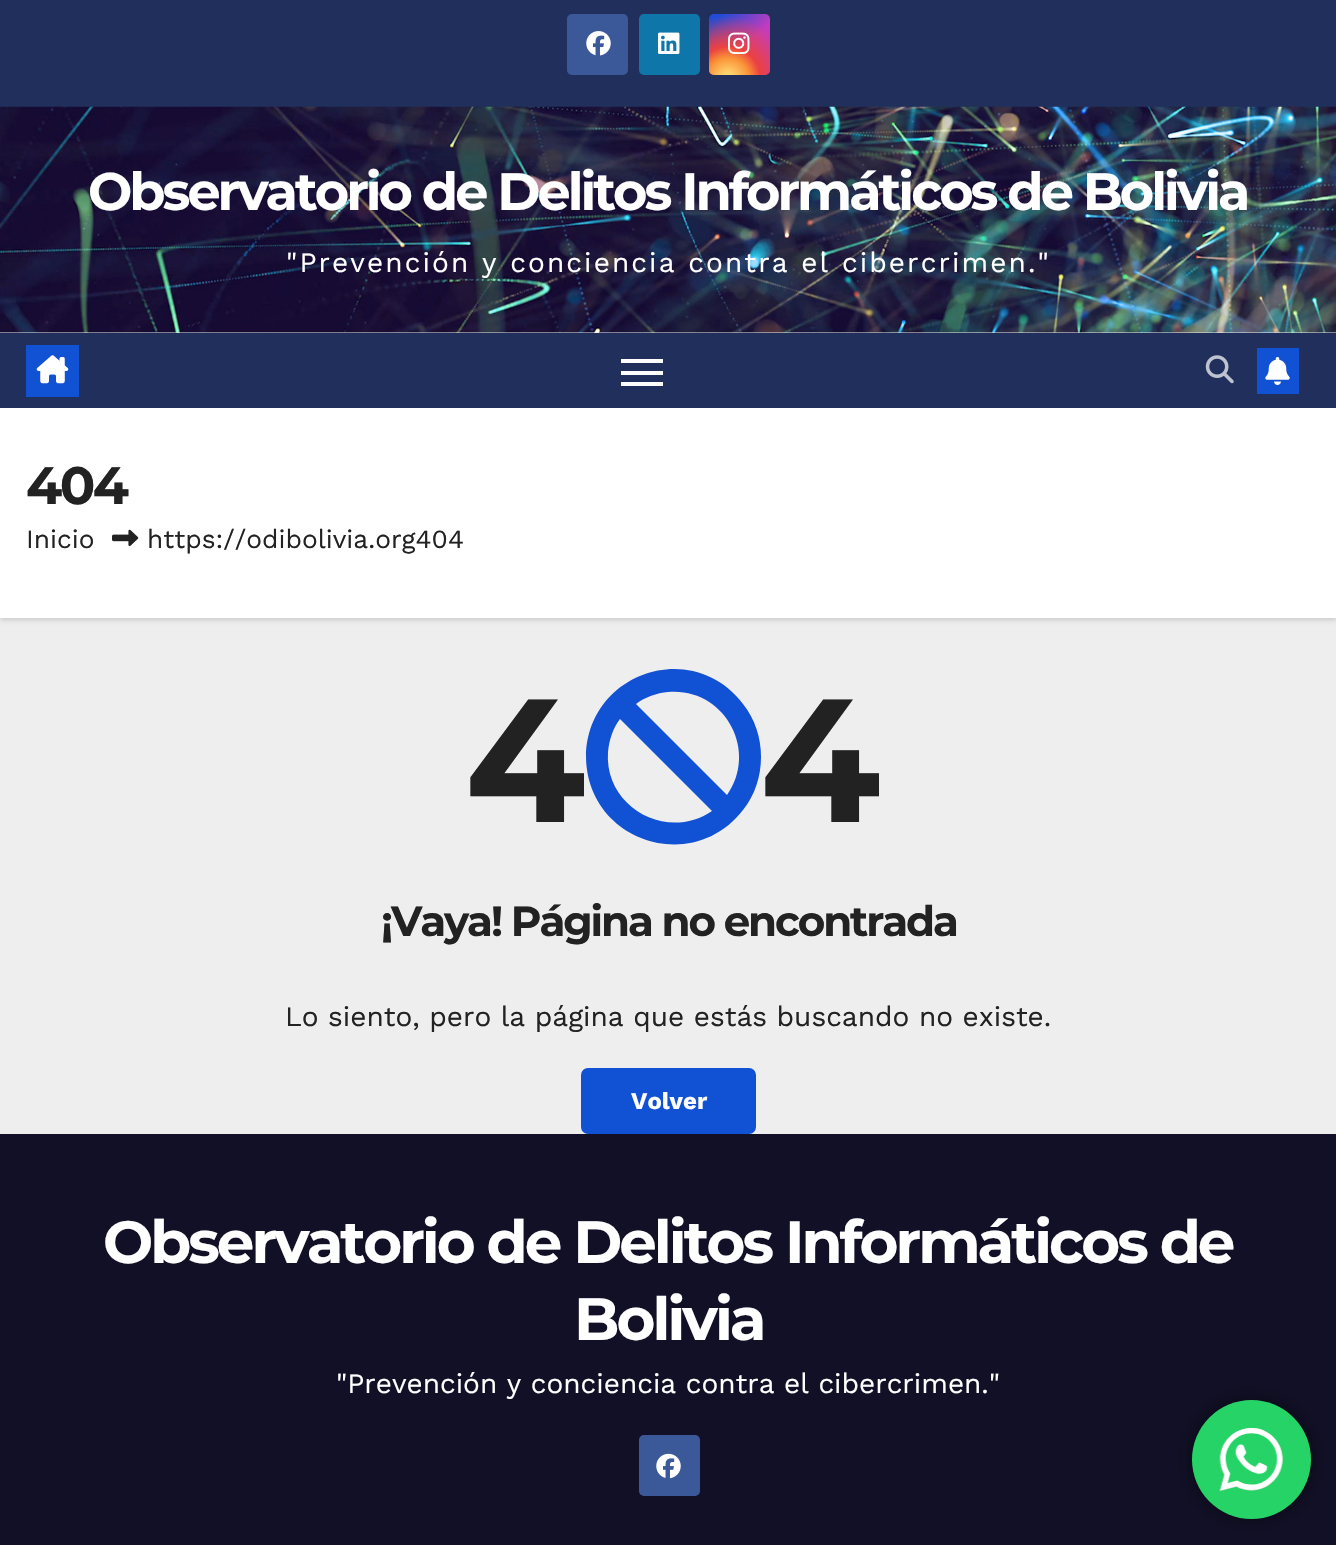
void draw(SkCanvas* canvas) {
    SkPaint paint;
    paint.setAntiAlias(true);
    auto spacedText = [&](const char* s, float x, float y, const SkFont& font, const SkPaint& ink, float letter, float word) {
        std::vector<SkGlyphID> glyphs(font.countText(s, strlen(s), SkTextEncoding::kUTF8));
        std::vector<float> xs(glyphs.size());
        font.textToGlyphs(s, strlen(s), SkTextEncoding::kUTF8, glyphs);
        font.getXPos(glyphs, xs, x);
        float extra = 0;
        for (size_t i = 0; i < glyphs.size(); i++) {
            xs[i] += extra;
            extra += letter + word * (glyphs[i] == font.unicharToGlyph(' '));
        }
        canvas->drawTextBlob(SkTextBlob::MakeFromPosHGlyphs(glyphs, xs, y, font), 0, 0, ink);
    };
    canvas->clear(0xFFEEEEEE);
    paint.setColor(0xFF202F5B);
    canvas->drawRect(SkRect::MakeXYWH(0, 0, 1336, 107), paint);
    paint.setColor(0xFF3B5998);
    canvas->drawRoundRect(SkRect::MakeXYWH(567, 14, 61, 61), 5, 5, paint);
    canvas->drawImageRect(SkImages::DeferredFromEncodedData(SkData::MakeFromFileName("img1.png")), SkRect::MakeXYWH(586, 31, 25, 25), SkSamplingOptions());
    paint.setColor(0xFF0E76A8);
    canvas->drawRoundRect(SkRect::MakeXYWH(639, 14, 61, 61), 5, 5, paint);
    canvas->drawImageRect(SkImages::DeferredFromEncodedData(SkData::MakeFromFileName("img2.png")), SkRect::MakeXYWH(658, 32, 22, 22), SkSamplingOptions());
    {
        const SkColor colors[] = {0xFF234BD7, 0xFFC33CBE};
        const float stops[] = {0.12f, 0.58f};
        const SkPoint ends[] = {{709, 14}, {770, 75}};
        paint.setShader(SkGradientShader::MakeLinear(ends, colors, stops, 2, SkTileMode::kClamp));
        paint.setAlpha(255);
    }
    canvas->drawRoundRect(SkRect::MakeXYWH(709, 14, 61, 61), 5, 5, paint);
    {
        const SkColor colors[] = {0xFFFFE17D, 0xFFFFCD69, 0xFFFA9137, 0xFFEB4141, 0x00EB4141};
        const float stops[] = {0, 0.1f, 0.28f, 0.42f, 0.82f};
        paint.setShader(SkGradientShader::MakeRadial({728, 79}, 77, colors, stops, 5, SkTileMode::kClamp));
        paint.setAlpha(255);
    }
    canvas->drawRoundRect(SkRect::MakeXYWH(709, 14, 61, 61), 5, 5, paint);
    canvas->drawImageRect(SkImages::DeferredFromEncodedData(SkData::MakeFromFileName("img3.png")), SkRect::MakeXYWH(728, 32, 22, 22), SkSamplingOptions());
    canvas->drawImageRect(SkImages::DeferredFromEncodedData(SkData::MakeFromFileName("img4.png")), SkRect::MakeXYWH(0, 106, 1336, 227), SkSamplingOptions());
    SkFont font1(fontMgr->matchFamilyStyle("Montserrat", SkFontStyle::Bold()), 52.5f);
    font1.setSubpixel(true);
    paint.setShader(nullptr);
    paint.setColor(0xFFFFFFFF);
    spacedText("Observatorio de Delitos Informáticos de Bolivia", 88, 210, font1, paint, -3, 0);
    SkFont font2(fontMgr->matchFamilyStyle("Work Sans", SkFontStyle::Normal()), 28);
    font2.setSubpixel(true);
    spacedText("\"Prevención y conciencia contra el cibercrimen.\"", 286, 272, font2, paint, 2.1f, 0);
    paint.setColor(0x26000000);
    paint.setMaskFilter(SkMaskFilter::MakeBlur(kNormal_SkBlurStyle, 2.5f));
    canvas->drawRect(SkRect::MakeXYWH(0, 410, 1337, 210), paint);
    paint.setMaskFilter(nullptr);
    paint.setColor(0xFF202F5B);
    canvas->drawRect(SkRect::MakeXYWH(0, 333, 1336, 75), paint);
    paint.setColor(0xFF1151D3);
    canvas->drawRect(SkRect::MakeXYWH(26, 345, 53, 52), paint);
    canvas->drawImageRect(SkImages::DeferredFromEncodedData(SkData::MakeFromFileName("img5.png")), SkRect::MakeXYWH(36, 355, 33, 29), SkSamplingOptions());
    paint.setColor(0xFFFFFFFF);
    canvas->drawRect(SkRect::MakeXYWH(621, 359, 42, 4), paint);
    canvas->drawRect(SkRect::MakeXYWH(621, 371, 42, 4), paint);
    canvas->drawRect(SkRect::MakeXYWH(621, 382, 42, 4), paint);
    canvas->drawImageRect(SkImages::DeferredFromEncodedData(SkData::MakeFromFileName("img6.png")), SkRect::MakeXYWH(1205, 355, 29, 29), SkSamplingOptions());
    paint.setColor(0xFF1151D3);
    canvas->drawRect(SkRect::MakeXYWH(1257, 348, 42, 46), paint);
    canvas->drawImageRect(SkImages::DeferredFromEncodedData(SkData::MakeFromFileName("img7.png")), SkRect::MakeXYWH(1265, 357, 25, 28), SkSamplingOptions());
    paint.setColor(0xFFFFFFFF);
    canvas->drawRect(SkRect::MakeXYWH(0, 408, 1336, 210), paint);
    paint.setColor(0xFF222222);
    spacedText("404", 26, 504, font1, paint, -2.5f, 0);
    SkFont font3(fontMgr->matchFamilyStyle("Work Sans", SkFontStyle::Normal()), 26.25f);
    font3.setSubpixel(true);
    canvas->drawString("Inicio", 26, 548, font3, paint);
    canvas->drawImageRect(SkImages::DeferredFromEncodedData(SkData::MakeFromFileName("img8.png")), SkRect::MakeXYWH(112, 529, 27, 18), SkSamplingOptions());
    canvas->drawString("https://odibolivia.org404", 147, 548, font3, paint);
    SkFont font4(fontMgr->matchFamilyStyle("Montserrat", SkFontStyle::Bold()), 175);
    font4.setSubpixel(true);
    spacedText("4", 465, 822, font4, paint, -9, 0);
    paint.setColor(0xFF1151D3);
    canvas->drawPath(SkPathBuilder().moveTo(712, 811).lineTo(620, 719).cubicTo(613, 728, 609, 740, 608, 752).cubicTo(604, 807, 667, 842, 712, 811).close().moveTo(727, 795).cubicTo(759, 750, 724, 687, 668, 692).cubicTo(657, 693, 645, 697, 636, 704).close().moveTo(586, 757).cubicTo(587, 673, 692, 637, 743, 704).cubicTo(755, 719, 761, 738, 761, 757).cubicTo(761, 776, 755, 795, 743, 810).cubicTo(692, 876, 587, 841, 586, 757).close().detach(), paint);
    paint.setColor(0xFF222222);
    spacedText("4", 760, 822, font4, paint, -9, 0);
    SkFont font5(fontMgr->matchFamilyStyle("Montserrat", SkFontStyle::Bold()), 42);
    font5.setSubpixel(true);
    spacedText("¡Vaya! Página no encontrada", 381, 936, font5, paint, -2.1f, 0);
    canvas->drawString("Lo siento, pero la página que estás buscando no existe.", 285, 1026, font2, paint);
    paint.setColor(0xFF1151D3);
    canvas->drawRoundRect(SkRect::MakeXYWH(583, 1070, 171, 62), 5, 5, paint);
    paint.setStyle(SkPaint::kStroke_Style);
    paint.setStrokeWidth(4);
    canvas->drawRoundRect(SkRect::MakeXYWH(583, 1070, 171, 62), 5, 5, paint);
    SkFont font6(fontMgr->matchFamilyStyle("Work Sans", SkFontStyle::Bold()), 24);
    font6.setSubpixel(true);
    paint.setStyle(SkPaint::kFill_Style);
    paint.setColor(0xFFFFFFFF);
    canvas->drawString("Volver", 631, 1109, font6, paint);
    paint.setColor(0xFF121026);
    canvas->drawRect(SkRect::MakeXYWH(0, 1134, 1336, 411), paint);
    SkFont font7(fontMgr->matchFamilyStyle("Montserrat", SkFontStyle::Bold()), 59.5f);
    font7.setSubpixel(true);
    paint.setColor(0xFFFFFFFF);
    spacedText("Observatorio de Delitos Informáticos de", 103, 1263, font7, paint, -3, 0);
    spacedText("Bolivia", 574, 1340, font7, paint, -3, 0);
    canvas->drawString("\"Prevención y conciencia contra el cibercrimen.\"", 336, 1393, font2, paint);
    paint.setColor(0xFF3B5998);
    canvas->drawRoundRect(SkRect::MakeXYWH(639, 1435, 61, 61), 5, 5, paint);
    canvas->drawImageRect(SkImages::DeferredFromEncodedData(SkData::MakeFromFileName("img9.png")), SkRect::MakeXYWH(656, 1453, 25, 26), SkSamplingOptions());
    paint.setColor(0x80000000);
    paint.setMaskFilter(SkMaskFilter::MakeBlur(kNormal_SkBlurStyle, 9.5f));
    canvas->drawRoundRect(SkRect::MakeXYWH(1192, 1400, 119, 119), 59.5f, 59.5f, paint);
    paint.setMaskFilter(nullptr);
    paint.setColor(0xFF25D366);
    canvas->drawCircle(1251.5f, 1459.5f, 59.5f, paint);
    canvas->drawImageRect(SkImages::DeferredFromEncodedData(SkData::MakeFromFileName("img10.png")), SkRect::MakeXYWH(1219, 1428, 64, 63), SkSamplingOptions());
}
